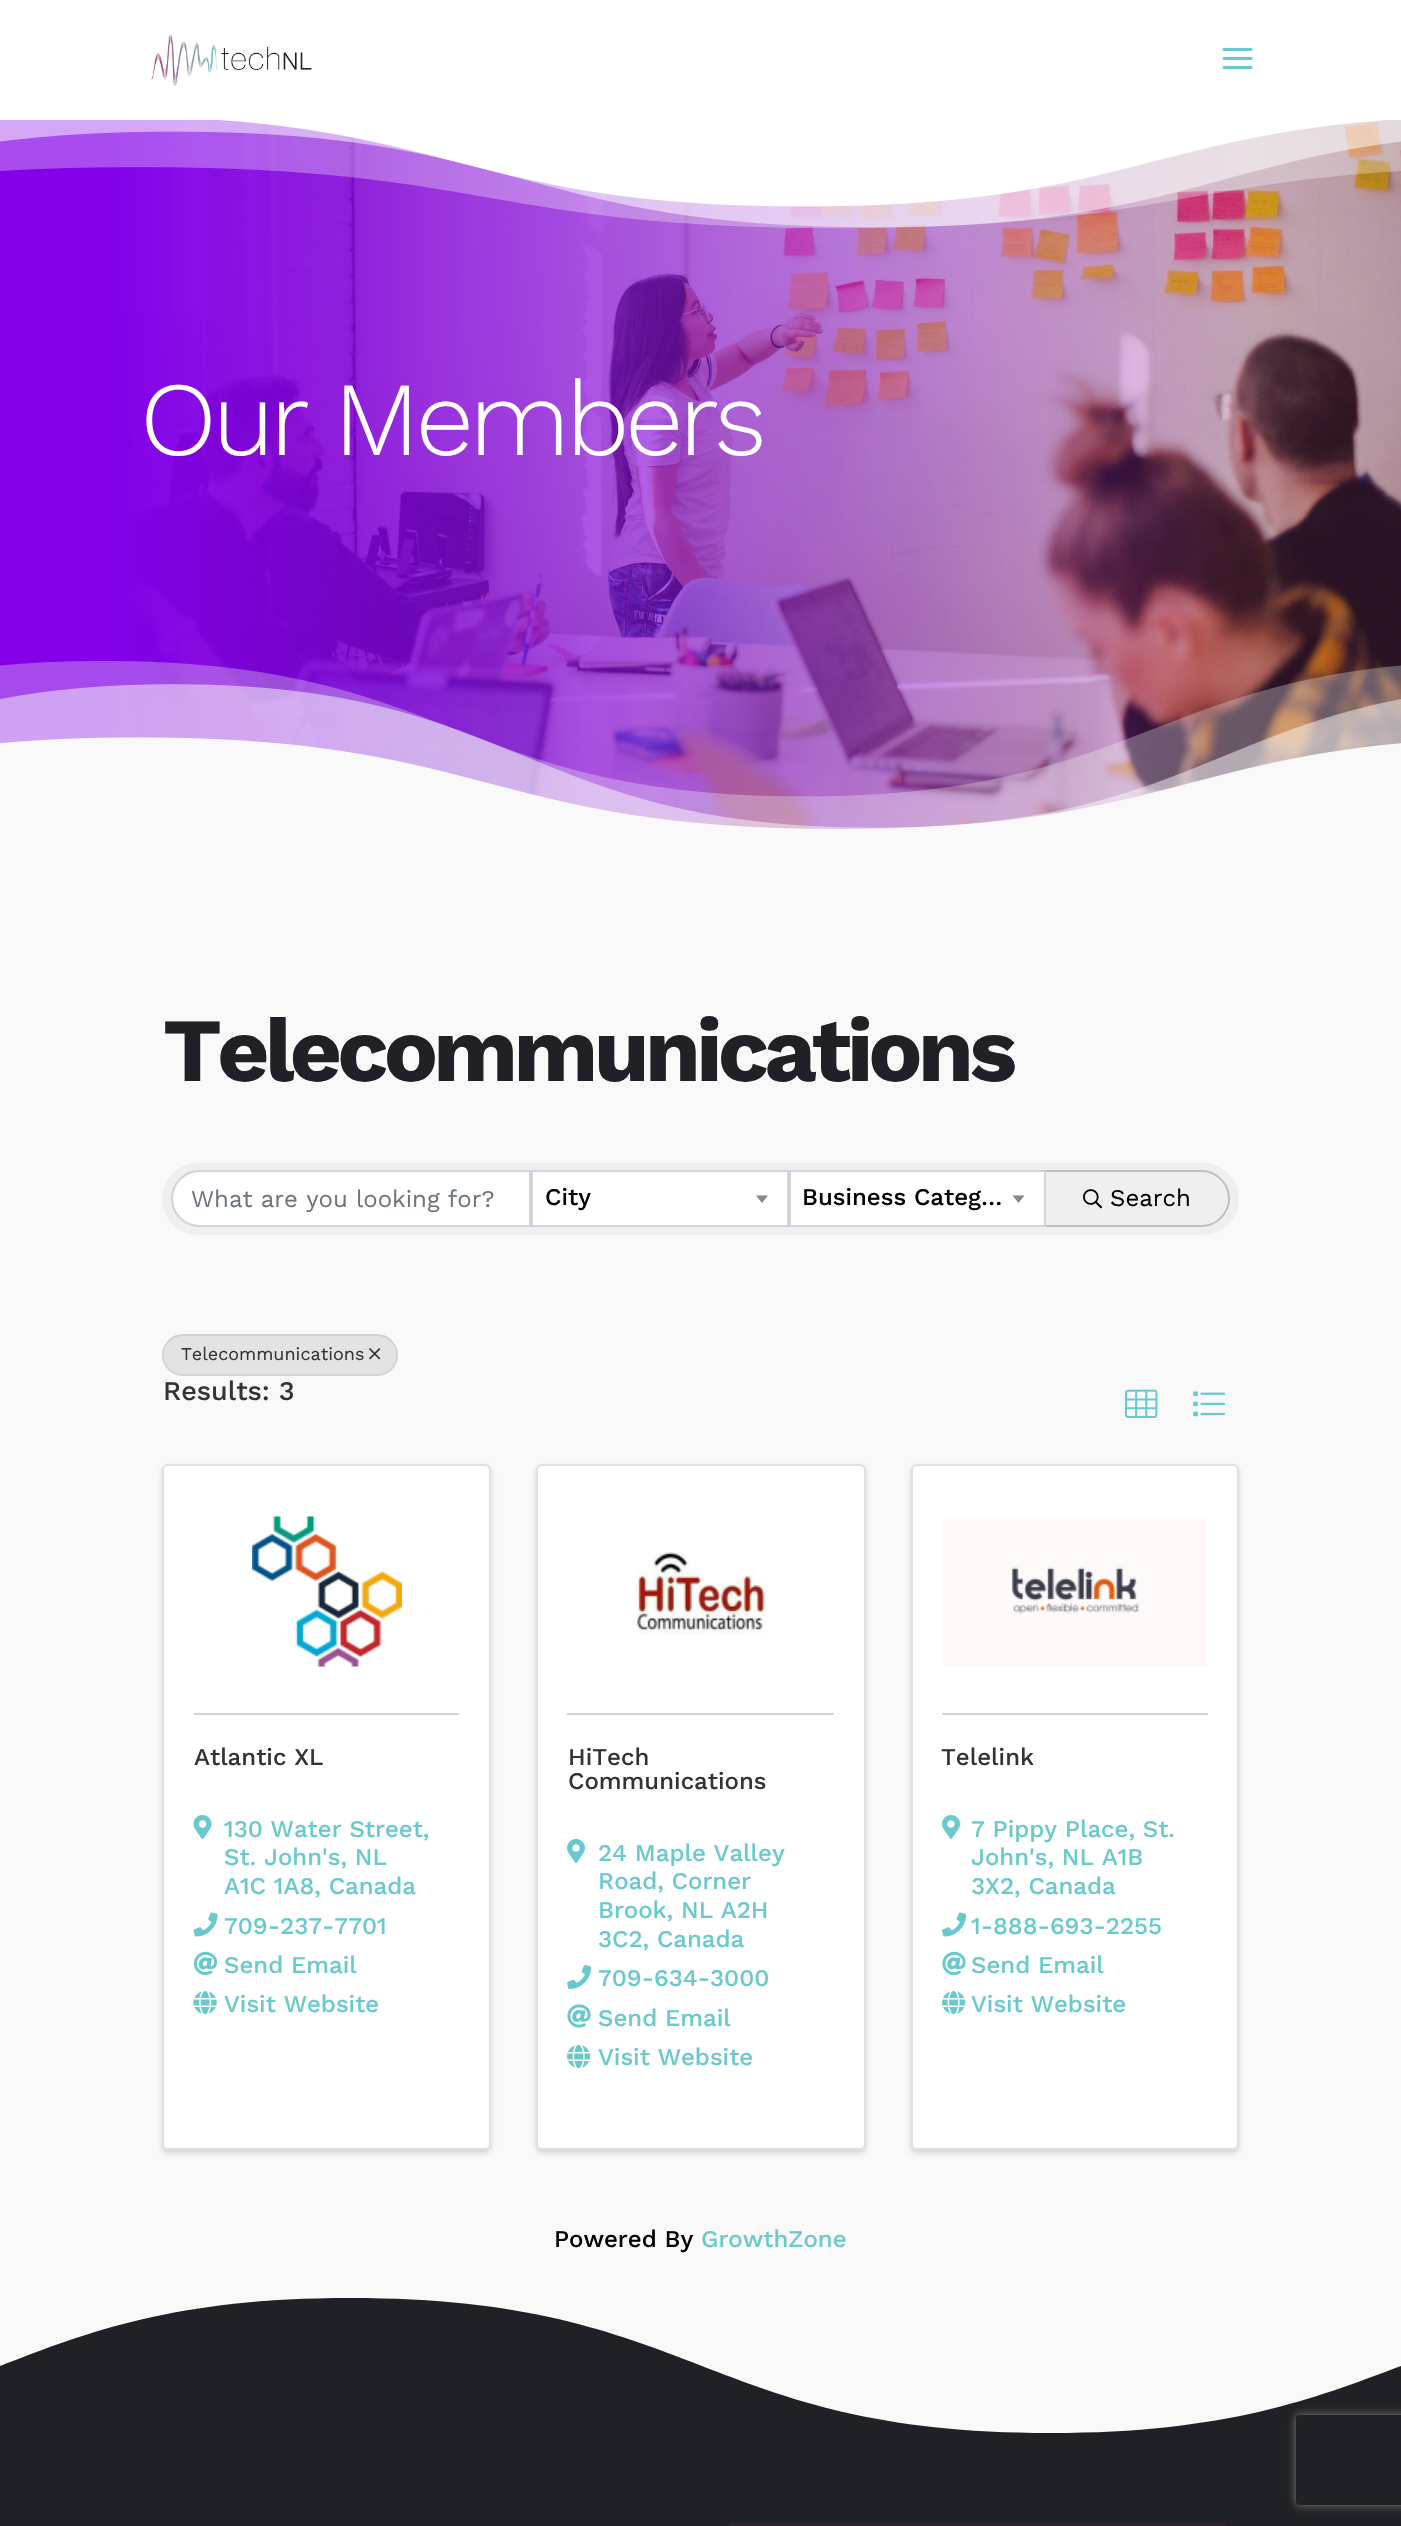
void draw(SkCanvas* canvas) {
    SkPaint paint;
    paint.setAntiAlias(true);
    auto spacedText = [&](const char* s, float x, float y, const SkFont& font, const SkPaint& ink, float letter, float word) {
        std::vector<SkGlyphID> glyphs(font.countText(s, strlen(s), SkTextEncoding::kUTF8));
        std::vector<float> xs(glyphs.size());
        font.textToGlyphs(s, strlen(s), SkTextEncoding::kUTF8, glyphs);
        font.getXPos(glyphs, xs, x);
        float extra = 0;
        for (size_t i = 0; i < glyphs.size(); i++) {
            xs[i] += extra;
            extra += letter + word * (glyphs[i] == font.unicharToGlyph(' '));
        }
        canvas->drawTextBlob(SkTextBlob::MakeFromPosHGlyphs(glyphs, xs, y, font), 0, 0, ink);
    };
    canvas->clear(0xFFFFFFFF);
    canvas->drawImageRect(SkImages::DeferredFromEncodedData(SkData::MakeFromFileName("img1.png")), SkRect::MakeXYWH(151, 34, 161, 52), SkSamplingOptions());
    canvas->drawImageRect(SkImages::DeferredFromEncodedData(SkData::MakeFromFileName("img2.png")), SkRect::MakeXYWH(1222, 48, 31, 21), SkSamplingOptions());
    canvas->drawImageRect(SkImages::DeferredFromEncodedData(SkData::MakeFromFileName("img3.png")), SkRect::MakeXYWH(0, 120, 1401, 709), SkSamplingOptions());
    canvas->drawImageRect(SkImages::DeferredFromEncodedData(SkData::MakeFromFileName("img4.png")), SkRect::MakeXYWH(0, 120, 1401, 109), SkSamplingOptions());
    SkFont font1(fontMgr->matchFamilyStyle("Work Sans", SkFontStyle(300, SkFontStyle::kNormal_Width, SkFontStyle::kUpright_Slant)), 105);
    font1.setSubpixel(true);
    paint.setColor(0xFFFFFFFF);
    spacedText("Our Members", 140, 455, font1, paint, -4.5f, 0);
    canvas->drawImageRect(SkImages::DeferredFromEncodedData(SkData::MakeFromFileName("img5.png")), SkRect::MakeXYWH(0, 661, 1401, 221), SkSamplingOptions());
    paint.setColor(0xFFF9F9F9);
    canvas->drawRect(SkRect::MakeXYWH(0, 882, 1401, 1521), paint);
    SkFont font2(fontMgr->matchFamilyStyle("Work Sans", SkFontStyle::Bold()), 90);
    font2.setSubpixel(true);
    paint.setColor(0xFF202126);
    spacedText("Telecommunications", 163, 1081, font2, paint, -4.5f, 0);
    paint.setColor(0xFFEFEFEF);
    canvas->drawRoundRect(SkRect::MakeXYWH(162, 1163, 1077, 72), 36, 36, paint);
    paint.setColor(0xFFFFFFFF);
    canvas->drawPath(SkPathBuilder().moveTo(199.5f, 1171).lineTo(530, 1171).lineTo(530, 1226).lineTo(199.5f, 1226).cubicTo(184.5f, 1226, 172, 1213.5f, 172, 1198.5f).cubicTo(172, 1183.5f, 184.5f, 1171, 199.5f, 1171).close().detach(), paint);
    paint.setStyle(SkPaint::kStroke_Style);
    paint.setStrokeWidth(2);
    paint.setColor(0xFFCED4DA);
    canvas->drawPath(SkPathBuilder().moveTo(199.5f, 1171).lineTo(530, 1171).lineTo(530, 1226).lineTo(199.5f, 1226).cubicTo(184.5f, 1226, 172, 1213.5f, 172, 1198.5f).cubicTo(172, 1183.5f, 184.5f, 1171, 199.5f, 1171).close().detach(), paint);
    canvas->save();
    canvas->clipRect(SkRect::MakeXYWH(191, 1184, 321, 28));
    SkFont font3(fontMgr->matchFamilyStyle("Work Sans", SkFontStyle::Normal()), 24);
    font3.setSubpixel(true);
    paint.setStyle(SkPaint::kFill_Style);
    paint.setColor(0xFF6C757D);
    canvas->drawString("What are you looking for?", 191, 1207, font3, paint);
    canvas->restore();
    paint.setColor(0xFFFFFFFF);
    canvas->drawRect(SkRect::MakeXYWH(532, 1171, 256, 55), paint);
    paint.setStyle(SkPaint::kStroke_Style);
    paint.setColor(0xFFCED4DA);
    canvas->drawRect(SkRect::MakeXYWH(532, 1171, 256, 55), paint);
    SkFont font4(fontMgr->matchFamilyStyle("Work Sans", SkFontStyle(500, SkFontStyle::kNormal_Width, SkFontStyle::kUpright_Slant)), 24);
    font4.setSubpixel(true);
    paint.setStyle(SkPaint::kFill_Style);
    paint.setColor(0xFF000000);
    canvas->drawString("City", 545, 1205, font4, paint);
    paint.setColor(0xFF888888);
    canvas->drawPath(SkPathBuilder().moveTo(756, 1195.5f).lineTo(768, 1195.5f).lineTo(762, 1203).close().detach(), paint);
    paint.setStyle(SkPaint::kStroke_Style);
    paint.setColor(0xFFBFBFBF);
    canvas->drawPath(SkPathBuilder().moveTo(1045, 1171).lineTo(1201.5f, 1171).cubicTo(1216.5f, 1171, 1229, 1183.5f, 1229, 1198.5f).cubicTo(1229, 1213.5f, 1216.5f, 1226, 1201.5f, 1226).lineTo(1045, 1226).close().detach(), paint);
    paint.setStyle(SkPaint::kFill_Style);
    paint.setColor(0xFFFFFFFF);
    canvas->drawRect(SkRect::MakeXYWH(790, 1171, 255, 55), paint);
    paint.setStyle(SkPaint::kStroke_Style);
    paint.setColor(0xFFCED4DA);
    canvas->drawRect(SkRect::MakeXYWH(790, 1171, 255, 55), paint);
    paint.setStyle(SkPaint::kFill_Style);
    paint.setColor(0xFF000000);
    canvas->drawString("Business Categ…", 802, 1205, font4, paint);
    paint.setColor(0xFF888888);
    canvas->drawPath(SkPathBuilder().moveTo(1012.5f, 1195.5f).lineTo(1024.5f, 1195.5f).lineTo(1018.5f, 1203).close().detach(), paint);
    canvas->drawImageRect(SkImages::DeferredFromEncodedData(SkData::MakeFromFileName("img6.png")), SkRect::MakeXYWH(1083, 1189, 20, 20), SkSamplingOptions());
    paint.setColor(0xFF000000);
    canvas->drawString("Search", 1110, 1206, font3, paint);
    paint.setColor(0xFFE3E3E3);
    canvas->drawRoundRect(SkRect::MakeXYWH(162, 1334, 236, 42), 21, 21, paint);
    paint.setStyle(SkPaint::kStroke_Style);
    paint.setColor(0x12000000);
    canvas->drawRoundRect(SkRect::MakeXYWH(163, 1335, 234, 40), 20, 20, paint);
    SkFont font5(fontMgr->matchFamilyStyle("Work Sans", SkFontStyle::Normal()), 18);
    font5.setSubpixel(true);
    paint.setStyle(SkPaint::kFill_Style);
    paint.setColor(0xFF333333);
    canvas->drawString("Telecommunications", 181, 1360, font5, paint);
    canvas->drawImageRect(SkImages::DeferredFromEncodedData(SkData::MakeFromFileName("img7.png")), SkRect::MakeXYWH(369, 1348, 12, 12), SkSamplingOptions());
    SkFont font6(fontMgr->matchFamilyStyle("Work Sans", SkFontStyle(500, SkFontStyle::kNormal_Width, SkFontStyle::kUpright_Slant)), 27);
    font6.setSubpixel(true);
    canvas->drawString("Results: 3", 163, 1400, font6, paint);
    canvas->drawImageRect(SkImages::DeferredFromEncodedData(SkData::MakeFromFileName("img8.png")), SkRect::MakeXYWH(1125, 1389, 33, 29), SkSamplingOptions());
    canvas->drawImageRect(SkImages::DeferredFromEncodedData(SkData::MakeFromFileName("img9.png")), SkRect::MakeXYWH(1193, 1391, 32, 26), SkSamplingOptions());
    paint.setColor(0x26000000);
    paint.setMaskFilter(SkMaskFilter::MakeBlur(kNormal_SkBlurStyle, 2.5f));
    canvas->drawRoundRect(SkRect::MakeXYWH(162, 1467, 329, 686), 6, 6, paint);
    paint.setMaskFilter(nullptr);
    paint.setColor(0xFFFFFFFF);
    canvas->drawRoundRect(SkRect::MakeXYWH(162, 1464, 329, 686), 6, 6, paint);
    paint.setStyle(SkPaint::kStroke_Style);
    paint.setColor(0x1F000000);
    canvas->drawRoundRect(SkRect::MakeXYWH(163, 1465, 327, 684), 5, 5, paint);
    canvas->drawImageRect(SkImages::DeferredFromEncodedData(SkData::MakeFromFileName("img10.png")), SkRect::MakeXYWH(252, 1516, 150, 151), SkSamplingOptions());
    paint.setStyle(SkPaint::kFill_Style);
    paint.setColor(0xFFD4D4D4);
    canvas->drawRect(SkRect::MakeXYWH(194, 1713, 265, 2), paint);
    paint.setColor(0xFF333333);
    canvas->drawString("Atlantic XL", 194, 1765, font4, paint);
    canvas->drawImageRect(SkImages::DeferredFromEncodedData(SkData::MakeFromFileName("img11.png")), SkRect::MakeXYWH(193, 1815, 19, 24), SkSamplingOptions());
    paint.setColor(0xFF6AC9CC);
    canvas->drawString("130 Water Street,", 224, 1837, font4, paint);
    canvas->drawString("St. John's, NL", 224, 1865, font4, paint);
    canvas->drawString("A1C 1A8, Canada", 224, 1894, font4, paint);
    canvas->drawImageRect(SkImages::DeferredFromEncodedData(SkData::MakeFromFileName("img12.png")), SkRect::MakeXYWH(193, 1912, 25, 25), SkSamplingOptions());
    canvas->drawString("709-237-7701", 224, 1934, font4, paint);
    canvas->drawImageRect(SkImages::DeferredFromEncodedData(SkData::MakeFromFileName("img13.png")), SkRect::MakeXYWH(193, 1951, 25, 25), SkSamplingOptions());
    canvas->drawString("Send Email", 224, 1973, font4, paint);
    canvas->drawImageRect(SkImages::DeferredFromEncodedData(SkData::MakeFromFileName("img14.png")), SkRect::MakeXYWH(193, 1990, 24, 25), SkSamplingOptions());
    canvas->drawString("Visit Website", 224, 2012, font4, paint);
    paint.setColor(0x26000000);
    paint.setMaskFilter(SkMaskFilter::MakeBlur(kNormal_SkBlurStyle, 2.5f));
    canvas->drawRoundRect(SkRect::MakeXYWH(536, 1467, 330, 686), 6, 6, paint);
    paint.setMaskFilter(nullptr);
    paint.setColor(0xFFFFFFFF);
    canvas->drawRoundRect(SkRect::MakeXYWH(536, 1464, 330, 686), 6, 6, paint);
    paint.setStyle(SkPaint::kStroke_Style);
    paint.setColor(0x1F000000);
    canvas->drawRoundRect(SkRect::MakeXYWH(537, 1465, 328, 684), 5, 5, paint);
    canvas->drawImageRect(SkImages::DeferredFromEncodedData(SkData::MakeFromFileName("img15.png")), SkRect::MakeXYWH(636, 1552, 130, 82), SkSamplingOptions());
    paint.setStyle(SkPaint::kFill_Style);
    paint.setColor(0xFFD4D4D4);
    canvas->drawRect(SkRect::MakeXYWH(567, 1713, 267, 2), paint);
    paint.setColor(0xFF333333);
    canvas->drawString("HiTech", 568, 1765, font4, paint);
    canvas->drawString("Communications", 568, 1789, font4, paint);
    canvas->drawImageRect(SkImages::DeferredFromEncodedData(SkData::MakeFromFileName("img16.png")), SkRect::MakeXYWH(567, 1839, 18, 24), SkSamplingOptions());
    paint.setColor(0xFF6AC9CC);
    canvas->drawString("24 Maple Valley", 598, 1861, font4, paint);
    canvas->drawString("Road, Corner", 598, 1889, font4, paint);
    canvas->drawString("Brook, NL A2H", 598, 1918, font4, paint);
    canvas->drawString("3C2, Canada", 598, 1947, font4, paint);
    canvas->drawImageRect(SkImages::DeferredFromEncodedData(SkData::MakeFromFileName("img17.png")), SkRect::MakeXYWH(567, 1965, 25, 24), SkSamplingOptions());
    canvas->drawString("709-634-3000", 598, 1986, font4, paint);
    canvas->drawImageRect(SkImages::DeferredFromEncodedData(SkData::MakeFromFileName("img18.png")), SkRect::MakeXYWH(567, 2004, 24, 24), SkSamplingOptions());
    canvas->drawString("Send Email", 598, 2026, font4, paint);
    canvas->drawImageRect(SkImages::DeferredFromEncodedData(SkData::MakeFromFileName("img19.png")), SkRect::MakeXYWH(567, 2044, 24, 25), SkSamplingOptions());
    canvas->drawString("Visit Website", 598, 2065, font4, paint);
    paint.setColor(0x26000000);
    paint.setMaskFilter(SkMaskFilter::MakeBlur(kNormal_SkBlurStyle, 2.5f));
    canvas->drawRoundRect(SkRect::MakeXYWH(911, 1467, 328, 686), 6, 6, paint);
    paint.setMaskFilter(nullptr);
    paint.setColor(0xFFFFFFFF);
    canvas->drawRoundRect(SkRect::MakeXYWH(911, 1464, 328, 686), 6, 6, paint);
    paint.setStyle(SkPaint::kStroke_Style);
    paint.setColor(0x1F000000);
    canvas->drawRoundRect(SkRect::MakeXYWH(912, 1465, 326, 684), 5, 5, paint);
    canvas->drawImageRect(SkImages::DeferredFromEncodedData(SkData::MakeFromFileName("img20.png")), SkRect::MakeXYWH(942, 1517, 265, 149), SkSamplingOptions());
    paint.setStyle(SkPaint::kFill_Style);
    paint.setColor(0xFFD4D4D4);
    canvas->drawRect(SkRect::MakeXYWH(942, 1713, 266, 2), paint);
    paint.setColor(0xFF333333);
    canvas->drawString("Telelink", 941, 1765, font4, paint);
    canvas->drawImageRect(SkImages::DeferredFromEncodedData(SkData::MakeFromFileName("img16.png")), SkRect::MakeXYWH(942, 1815, 18, 24), SkSamplingOptions());
    paint.setColor(0xFF6AC9CC);
    canvas->drawString("7 Pippy Place, St.", 971, 1837, font4, paint);
    canvas->drawString("John's, NL A1B", 971, 1865, font4, paint);
    canvas->drawString("3X2, Canada", 971, 1894, font4, paint);
    canvas->drawImageRect(SkImages::DeferredFromEncodedData(SkData::MakeFromFileName("img21.png")), SkRect::MakeXYWH(942, 1912, 24, 25), SkSamplingOptions());
    canvas->drawString("1-888-693-2255", 971, 1934, font4, paint);
    canvas->drawImageRect(SkImages::DeferredFromEncodedData(SkData::MakeFromFileName("img22.png")), SkRect::MakeXYWH(942, 1951, 24, 25), SkSamplingOptions());
    canvas->drawString("Send Email", 971, 1973, font4, paint);
    canvas->drawImageRect(SkImages::DeferredFromEncodedData(SkData::MakeFromFileName("img19.png")), SkRect::MakeXYWH(942, 1990, 24, 25), SkSamplingOptions());
    canvas->drawString("Visit Website", 971, 2012, font4, paint);
    paint.setColor(0xFF000000);
    canvas->drawString("Powered By", 554, 2247, font4, paint);
    paint.setColor(0xFF6AC9CC);
    canvas->drawString("GrowthZone", 701, 2247, font4, paint);
    paint.setColor(0xFFF9F9F9);
    canvas->drawPath(SkPathBuilder().moveTo(350, 2448).cubicTo(175, 2448, 88, 2482, 0, 2516).lineTo(0, 2403).lineTo(1401, 2403).lineTo(1401, 2516).cubicTo(1313, 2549, 1226, 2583, 1051, 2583).cubicTo(701, 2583, 701, 2448, 350, 2448).close().detach(), paint);
    paint.setColor(0xFF202126);
    canvas->drawPath(SkPathBuilder().moveTo(350, 2298).cubicTo(701, 2298, 701, 2433, 1051, 2433).cubicTo(1226, 2433, 1313, 2399, 1401, 2366).lineTo(1401, 2478).lineTo(0, 2478).lineTo(0, 2366).cubicTo(88, 2332, 175, 2298, 350, 2298).close().detach(), paint);
    canvas->drawRect(SkRect::MakeXYWH(0, 2478, 1401, 48), paint);
    {
        const SkColor colors[] = {0xFF2F212F, 0xFF202126};
        const float stops[] = {0, 1};
        const SkPoint ends[] = {{977, 2523}, {977, 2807}};
        paint.setShader(SkGradientShader::MakeLinear(ends, colors, stops, 2, SkTileMode::kClamp));
        paint.setAlpha(255);
    }
    canvas->drawRect(SkRect::MakeXYWH(729, 2523, 497, 3), paint);
    canvas->save();
    canvas->clipPath(SkPathBuilder(SkPathFillType::kEvenOdd).moveTo(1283, 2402).lineTo(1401, 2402).lineTo(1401, 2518).lineTo(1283, 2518).close().moveTo(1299, 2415).lineTo(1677, 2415).cubicTo(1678.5f, 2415, 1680, 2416.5f, 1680, 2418).lineTo(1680, 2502).cubicTo(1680, 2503.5f, 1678.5f, 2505, 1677, 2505).lineTo(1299, 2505).cubicTo(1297.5f, 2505, 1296, 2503.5f, 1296, 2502).lineTo(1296, 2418).cubicTo(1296, 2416.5f, 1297.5f, 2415, 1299, 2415).close().detach(), true);
    paint.setShader(nullptr);
    paint.setColor(0xFF808080);
    paint.setMaskFilter(SkMaskFilter::MakeBlur(kNormal_SkBlurStyle, 4));
    canvas->drawRoundRect(SkRect::MakeXYWH(1296, 2415, 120, 90), 3, 3, paint);
    paint.setMaskFilter(nullptr);
    canvas->restore();
}
